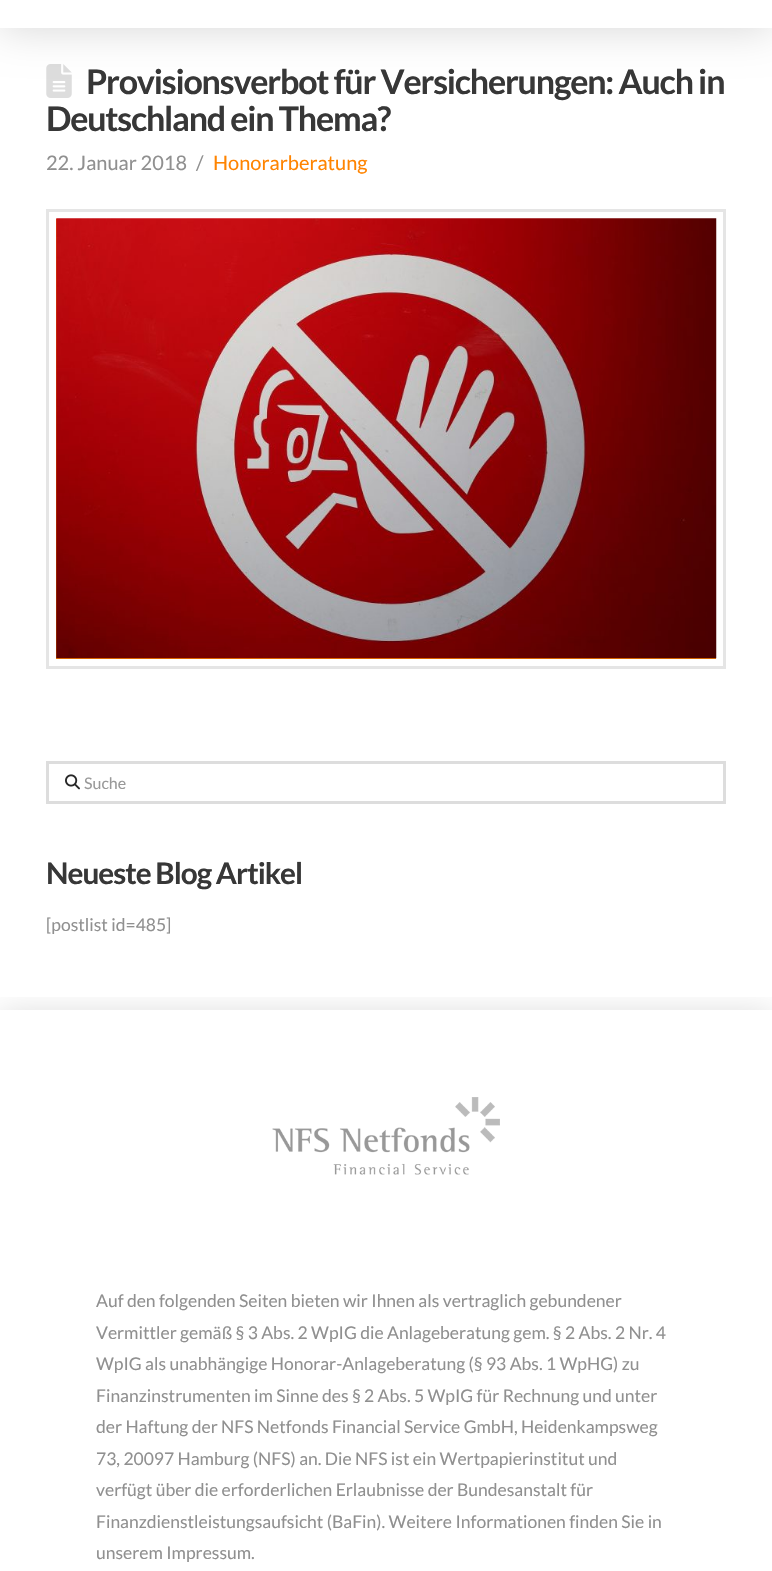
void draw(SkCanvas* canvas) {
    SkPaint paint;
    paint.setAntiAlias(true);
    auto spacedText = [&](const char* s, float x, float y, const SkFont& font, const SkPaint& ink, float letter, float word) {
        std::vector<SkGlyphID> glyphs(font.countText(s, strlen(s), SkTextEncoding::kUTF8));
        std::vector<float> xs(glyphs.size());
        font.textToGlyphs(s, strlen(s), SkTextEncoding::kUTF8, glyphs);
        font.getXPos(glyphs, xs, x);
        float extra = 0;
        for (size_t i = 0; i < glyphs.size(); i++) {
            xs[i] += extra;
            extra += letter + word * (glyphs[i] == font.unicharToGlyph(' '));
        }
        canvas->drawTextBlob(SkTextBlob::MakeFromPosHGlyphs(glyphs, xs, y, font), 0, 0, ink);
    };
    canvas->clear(0xFFFFFFFF);
    canvas->drawImageRect(SkImages::DeferredFromEncodedData(SkData::MakeFromFileName("img1.png")), SkRect::MakeXYWH(46, 64, 26, 34), SkSamplingOptions());
    paint.setColor(0x26000000);
    paint.setMaskFilter(SkMaskFilter::MakeBlur(kNormal_SkBlurStyle, 20));
    canvas->drawRect(SkRect::MakeXYWH(0, -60, 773, 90), paint);
    paint.setMaskFilter(nullptr);
    paint.setColor(0xFFFFFFFF);
    canvas->drawRect(SkRect::MakeXYWH(0, 0, 772, 28), paint);
    SkFont font1(fontMgr->matchFamilyStyle("Lato", SkFontStyle::Bold()), 34);
    font1.setSubpixel(true);
    paint.setColor(0xFF373737);
    spacedText("Provisionsverbot für Versicherungen: Auch in", 86, 94, font1, paint, -1.2f, 0);
    spacedText("Deutschland ein Thema?", 46, 131, font1, paint, -1.2f, 0);
    SkFont font2(fontMgr->matchFamilyStyle("Lato", SkFontStyle::Normal()), 20);
    font2.setSubpixel(true);
    paint.setColor(0xFF909090);
    canvas->drawString("22. Januar 2018", 46, 170, font2, paint);
    canvas->drawString("/", 196, 170, font2, paint);
    paint.setColor(0xFFFF8400);
    canvas->drawString("Honorarberatung", 213, 170, font2, paint);
    paint.setStyle(SkPaint::kStroke_Style);
    paint.setStrokeWidth(3);
    paint.setColor(0xFFE5E5E5);
    canvas->drawRect(SkRect::MakeXYWH(47.5f, 210.5f, 677, 457), paint);
    paint.setStyle(SkPaint::kFill_Style);
    paint.setColor(0xFFFF8400);
    canvas->drawRect(SkRect::MakeXYWH(56, 219, 660, 440), paint);
    canvas->drawImageRect(SkImages::DeferredFromEncodedData(SkData::MakeFromFileName("img2.png")), SkRect::MakeXYWH(56, 218, 661, 441), SkSamplingOptions());
    paint.setStyle(SkPaint::kStroke_Style);
    paint.setColor(0xFFDDDDDD);
    canvas->drawRect(SkRect::MakeXYWH(47.5f, 762.5f, 677, 40), paint);
    canvas->drawImageRect(SkImages::DeferredFromEncodedData(SkData::MakeFromFileName("img3.png")), SkRect::MakeXYWH(65, 774, 15, 16), SkSamplingOptions());
    SkFont font3(fontMgr->matchFamilyStyle("Lato", SkFontStyle::Normal()), 16);
    font3.setSubpixel(true);
    paint.setStyle(SkPaint::kFill_Style);
    paint.setColor(0xFF999999);
    canvas->drawString("Suche", 84, 789, font3, paint);
    SkFont font4(fontMgr->matchFamilyStyle("Lato", SkFontStyle::Bold()), 29.75f);
    font4.setSubpixel(true);
    paint.setColor(0xFF373737);
    spacedText("Neueste Blog Artikel", 46, 884, font4, paint, -1, 0);
    SkFont font5(fontMgr->matchFamilyStyle("Lato", SkFontStyle::Normal()), 17.5f);
    font5.setSubpixel(true);
    paint.setColor(0xFF909090);
    canvas->drawString("[postlist id=485]", 46, 931, font5, paint);
    canvas->save();
    canvas->clipRect(SkRect::MakeXYWH(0, 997, 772, 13));
    paint.setColor(0x26000000);
    paint.setMaskFilter(SkMaskFilter::MakeBlur(kNormal_SkBlurStyle, 15.5f));
    canvas->drawRect(SkRect::MakeXYWH(0, 1014, 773, 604), paint);
    paint.setMaskFilter(nullptr);
    canvas->restore();
    canvas->drawImageRect(SkImages::DeferredFromEncodedData(SkData::MakeFromFileName("img4.png")), SkRect::MakeXYWH(272, 1097, 228, 78), SkSamplingOptions());
    paint.setColor(0xFF909090);
    canvas->drawString("Auf den folgenden Seiten bieten wir Ihnen als vertraglich gebundener", 96, 1307, font5, paint);
    canvas->drawString("Vermittler gemäß § 3 Abs. 2 WpIG die Anlageberatung gem. § 2 Abs. 2 Nr. 4", 96, 1339, font5, paint);
    canvas->drawString("WpIG als unabhängige Honorar-Anlageberatung (§ 93 Abs. 1 WpHG) zu", 96, 1370, font5, paint);
    canvas->drawString("Finanzinstrumenten im Sinne des § 2 Abs. 5 WpIG für Rechnung und unter", 96, 1402, font5, paint);
    canvas->drawString("der Haftung der NFS Netfonds Financial Service GmbH, Heidenkampsweg", 96, 1433, font5, paint);
    canvas->drawString("73, 20097 Hamburg (NFS) an. Die NFS ist ein Wertpapierinstitut und", 96, 1465, font5, paint);
    canvas->drawString("verfügt über die erforderlichen Erlaubnisse der Bundesanstalt für", 96, 1496, font5, paint);
    canvas->drawString("Finanzdienstleistungsaufsicht (BaFin). Weitere Informationen finden Sie in", 96, 1528, font5, paint);
    canvas->drawString("unserem Impressum.", 96, 1559, font5, paint);
}
